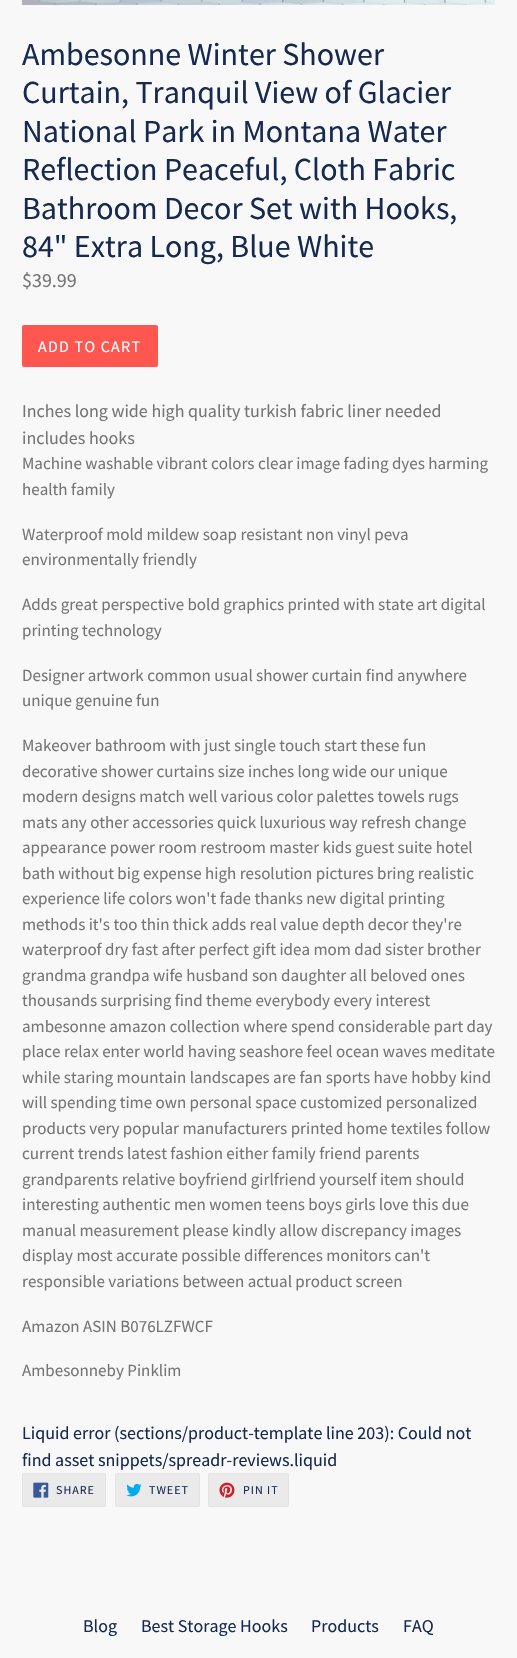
void draw(SkCanvas* canvas) {
    SkPaint paint;
    paint.setAntiAlias(true);
    auto spacedText = [&](const char* s, float x, float y, const SkFont& font, const SkPaint& ink, float letter, float word) {
        std::vector<SkGlyphID> glyphs(font.countText(s, strlen(s), SkTextEncoding::kUTF8));
        std::vector<float> xs(glyphs.size());
        font.textToGlyphs(s, strlen(s), SkTextEncoding::kUTF8, glyphs);
        font.getXPos(glyphs, xs, x);
        float extra = 0;
        for (size_t i = 0; i < glyphs.size(); i++) {
            xs[i] += extra;
            extra += letter + word * (glyphs[i] == font.unicharToGlyph(' '));
        }
        canvas->drawTextBlob(SkTextBlob::MakeFromPosHGlyphs(glyphs, xs, y, font), 0, 0, ink);
    };
    canvas->clear(0xFFF8F8F8);
    canvas->drawImageRect(SkImages::DeferredFromEncodedData(SkData::MakeFromFileName("img1.png")), SkRect::MakeXYWH(22, 0, 473, 5), SkSamplingOptions());
    SkFont font1(fontMgr->matchFamilyStyle("Source Sans Pro", SkFontStyle::Normal()), 32);
    font1.setSubpixel(true);
    paint.setColor(0xFF162950);
    canvas->drawString("Ambesonne Winter Shower", 22, 65, font1, paint);
    canvas->drawString("Curtain, Tranquil View of Glacier", 22, 103, font1, paint);
    canvas->drawString("National Park in Montana Water", 22, 142, font1, paint);
    canvas->drawString("Reflection Peaceful, Cloth Fabric", 22, 180, font1, paint);
    canvas->drawString("Bathroom Decor Set with Hooks,", 22, 219, font1, paint);
    canvas->drawString("84\" Extra Long, Blue White", 22, 257, font1, paint);
    SkFont font2(fontMgr->matchFamilyStyle("Source Sans Pro", SkFontStyle::Normal()), 20);
    font2.setSubpixel(true);
    paint.setColor(0xFF757575);
    canvas->drawString("$39.99", 22, 287, font2, paint);
    paint.setColor(0xFFFF574F);
    canvas->drawRoundRect(SkRect::MakeXYWH(22, 325, 136, 42), 2, 2, paint);
    SkFont font3(fontMgr->matchFamilyStyle("Source Sans Pro", SkFontStyle::Normal()), 16);
    font3.setSubpixel(true);
    paint.setColor(0xFFFFFFFF);
    spacedText("ADD TO CART", 38, 352, font3, paint, 1.25f, 0);
    SkFont font4(fontMgr->matchFamilyStyle("Source Sans Pro", SkFontStyle::Normal()), 18);
    font4.setSubpixel(true);
    paint.setColor(0xFF757575);
    canvas->drawString("Inches long wide high quality turkish fabric liner needed", 22, 417, font4, paint);
    canvas->drawString("includes hooks", 22, 444, font4, paint);
    SkFont font5(fontMgr->matchFamilyStyle("Source Sans Pro", SkFontStyle::Normal()), 17);
    font5.setSubpixel(true);
    canvas->drawString("Machine washable vibrant colors clear image fading dyes harming", 22, 469, font5, paint);
    canvas->drawString("health family", 22, 495, font5, paint);
    canvas->drawString("Waterproof mold mildew soap resistant non vinyl peva", 22, 540, font5, paint);
    canvas->drawString("environmentally friendly", 22, 565, font5, paint);
    canvas->drawString("Adds great perspective bold graphics printed with state art digital", 22, 610, font5, paint);
    canvas->drawString("printing technology", 22, 636, font5, paint);
    canvas->drawString("Designer artwork common usual shower curtain find anywhere", 22, 681, font5, paint);
    canvas->drawString("unique genuine fun", 22, 706, font5, paint);
    canvas->drawString("Makeover bathroom with just single touch start these fun", 22, 751, font5, paint);
    canvas->drawString("decorative shower curtains size inches long wide our unique", 22, 777, font5, paint);
    canvas->drawString("modern designs match well various color palettes towels rugs", 22, 802, font5, paint);
    canvas->drawString("mats any other accessories quick luxurious way refresh change", 22, 828, font5, paint);
    canvas->drawString("appearance power room restroom master kids guest suite hotel", 22, 853, font5, paint);
    canvas->drawString("bath without big expense high resolution pictures bring realistic", 22, 879, font5, paint);
    canvas->drawString("experience life colors won't fade thanks new digital printing", 22, 904, font5, paint);
    canvas->drawString("methods it's too thin thick adds real value depth decor they're", 22, 930, font5, paint);
    canvas->drawString("waterproof dry fast after perfect gift idea mom dad sister brother", 22, 955, font5, paint);
    canvas->drawString("grandma grandpa wife husband son daughter all beloved ones", 22, 981, font5, paint);
    canvas->drawString("thousands surprising find theme everybody every interest", 22, 1006, font5, paint);
    canvas->drawString("ambesonne amazon collection where spend considerable part day", 22, 1032, font5, paint);
    canvas->drawString("place relax enter world having seashore feel ocean waves meditate", 22, 1057, font5, paint);
    canvas->drawString("while staring mountain landscapes are fan sports have hobby kind", 22, 1083, font5, paint);
    canvas->drawString("will spending time own personal space customized personalized", 22, 1108, font5, paint);
    canvas->drawString("products very popular manufacturers printed home textiles follow", 22, 1134, font5, paint);
    canvas->drawString("current trends latest fashion either family friend parents", 22, 1159, font5, paint);
    canvas->drawString("grandparents relative boyfriend girlfriend yourself item should", 22, 1185, font5, paint);
    canvas->drawString("interesting authentic men women teens boys girls love this due", 22, 1210, font5, paint);
    canvas->drawString("manual measurement please kindly allow discrepancy images", 22, 1236, font5, paint);
    canvas->drawString("display most accurate possible differences monitors can't", 22, 1261, font5, paint);
    canvas->drawString("responsible variations between actual product screen", 22, 1287, font5, paint);
    canvas->drawString("Amazon ASIN B076LZFWCF", 22, 1332, font5, paint);
    canvas->drawString("Ambesonneby Pinklim", 22, 1376, font5, paint);
    paint.setColor(0xFF162950);
    canvas->drawString("Liquid error (sections/product-template line 203): Could not", 22, 1439, font4, paint);
    canvas->drawString("find asset snippets/spreadr-reviews.liquid", 22, 1466, font4, paint);
    paint.setColor(0xFFEAEAEA);
    canvas->drawRoundRect(SkRect::MakeXYWH(22.5f, 1473.5f, 83, 33), 1.5f, 1.5f, paint);
    paint.setStyle(SkPaint::kStroke_Style);
    paint.setStrokeWidth(1);
    paint.setColor(0xFFE4E4E4);
    canvas->drawRoundRect(SkRect::MakeXYWH(22.5f, 1473.5f, 83, 33), 1.5f, 1.5f, paint);
    canvas->drawImageRect(SkImages::DeferredFromEncodedData(SkData::MakeFromFileName("img2.png")), SkRect::MakeXYWH(33, 1482, 16, 16), SkSamplingOptions());
    SkFont font6(fontMgr->matchFamilyStyle("Source Sans Pro", SkFontStyle::Normal()), 12);
    font6.setSubpixel(true);
    paint.setStyle(SkPaint::kFill_Style);
    paint.setColor(0xFF162950);
    spacedText("SHARE", 56, 1494, font6, paint, 1, 0);
    paint.setColor(0xFFEAEAEA);
    canvas->drawRoundRect(SkRect::MakeXYWH(115.5f, 1473.5f, 84, 33), 1.5f, 1.5f, paint);
    paint.setStyle(SkPaint::kStroke_Style);
    paint.setColor(0xFFE4E4E4);
    canvas->drawRoundRect(SkRect::MakeXYWH(115.5f, 1473.5f, 84, 33), 1.5f, 1.5f, paint);
    canvas->drawImageRect(SkImages::DeferredFromEncodedData(SkData::MakeFromFileName("img3.png")), SkRect::MakeXYWH(126, 1483, 16, 14), SkSamplingOptions());
    paint.setStyle(SkPaint::kFill_Style);
    paint.setColor(0xFF162950);
    spacedText("TWEET", 149, 1494, font6, paint, 1, 0);
    paint.setColor(0xFFEAEAEA);
    canvas->drawRoundRect(SkRect::MakeXYWH(208.5f, 1473.5f, 80, 33), 1.5f, 1.5f, paint);
    paint.setStyle(SkPaint::kStroke_Style);
    paint.setColor(0xFFE4E4E4);
    canvas->drawRoundRect(SkRect::MakeXYWH(208.5f, 1473.5f, 80, 33), 1.5f, 1.5f, paint);
    canvas->drawImageRect(SkImages::DeferredFromEncodedData(SkData::MakeFromFileName("img4.png")), SkRect::MakeXYWH(219, 1482, 16, 16), SkSamplingOptions());
    paint.setStyle(SkPaint::kFill_Style);
    paint.setColor(0xFF162950);
    spacedText("PIN IT", 243, 1494, font6, paint, 1, 0);
    canvas->drawString("Blog", 83, 1632, font4, paint);
    canvas->drawString("Best Storage Hooks", 141, 1632, font4, paint);
    canvas->drawString("Products", 311, 1632, font4, paint);
    canvas->drawString("FAQ", 403, 1632, font4, paint);
}
